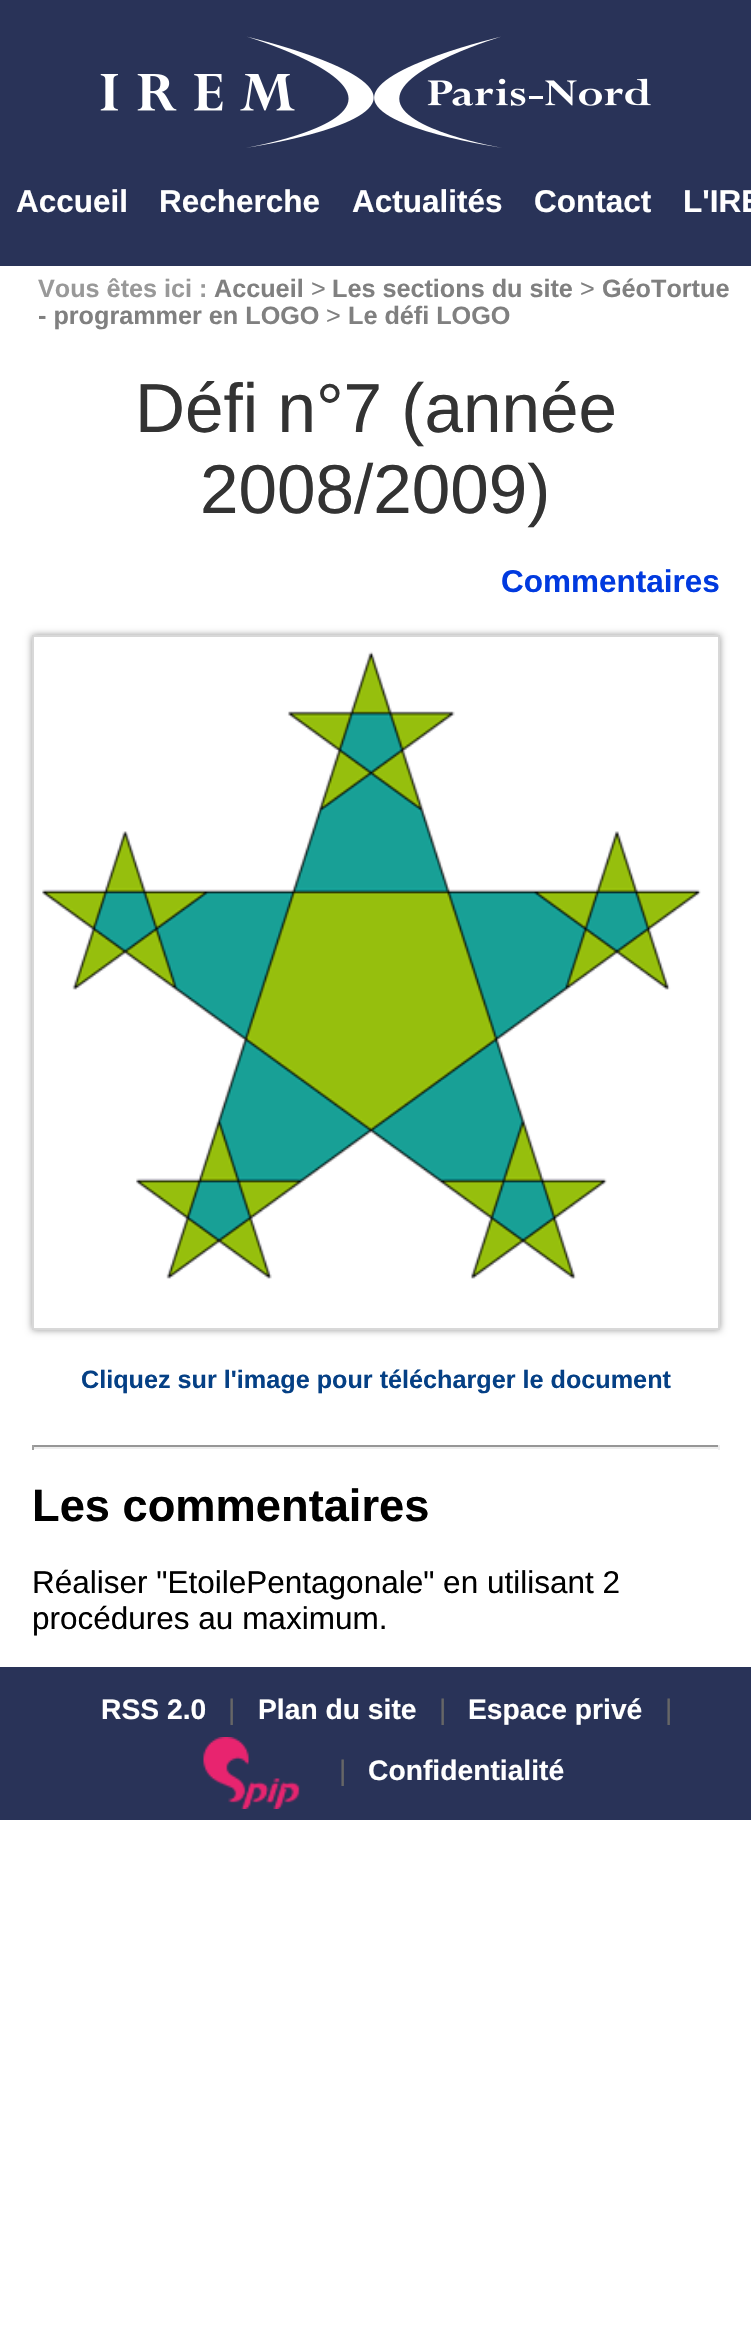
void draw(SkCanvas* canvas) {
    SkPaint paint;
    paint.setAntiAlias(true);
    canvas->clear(0xFFFFFFFF);
    paint.setColor(0xFF293358);
    canvas->drawRect(SkRect::MakeXYWH(0, 0, 751, 266), paint);
    canvas->drawImageRect(SkImages::DeferredFromEncodedData(SkData::MakeFromFileName("img1.png")), SkRect::MakeXYWH(100, 36, 551, 112), SkSamplingOptions());
    SkFont font1(fontMgr->matchFamilyStyle("Liberation Sans", SkFontStyle::Bold()), 31.5f);
    font1.setSubpixel(true);
    paint.setColor(0xFFFFFFFF);
    canvas->drawString("Accueil", 16, 212, font1, paint);
    canvas->drawString("Recherche", 159, 212, font1, paint);
    canvas->drawString("Actualités", 352, 212, font1, paint);
    canvas->drawString("Contact", 534, 212, font1, paint);
    canvas->drawString("L'IRE", 683, 212, font1, paint);
    SkFont font2(fontMgr->matchFamilyStyle("Liberation Sans", SkFontStyle::Bold()), 25.2f);
    font2.setSubpixel(true);
    paint.setColor(0xFF999999);
    canvas->drawString("Vous êtes ici :", 38, 297, font2, paint);
    paint.setColor(0xFF808080);
    canvas->drawString("Accueil", 214, 297, font2, paint);
    SkFont font3(fontMgr->matchFamilyStyle("Liberation Sans", SkFontStyle::Normal()), 25.2f);
    font3.setSubpixel(true);
    canvas->drawString(">", 311, 297, font3, paint);
    canvas->drawString("Les sections du site", 332, 297, font2, paint);
    canvas->drawString(">", 580, 297, font3, paint);
    canvas->drawString("GéoTortue", 602, 297, font2, paint);
    canvas->drawString("- programmer en LOGO", 38, 324, font2, paint);
    canvas->drawString(">", 326, 324, font3, paint);
    canvas->drawString("Le défi LOGO", 348, 324, font2, paint);
    SkFont font4(fontMgr->matchFamilyStyle("Liberation Sans", SkFontStyle::Normal()), 69.25f);
    font4.setSubpixel(true);
    paint.setColor(0xFF333333);
    canvas->drawString("Défi n°7 (année", 135, 432, font4, paint);
    canvas->drawString("2008/2009)", 200, 513, font4, paint);
    paint.setColor(0xFF013ADF);
    canvas->drawString("Commentaires", 501, 592, font1, paint);
    canvas->save();
    canvas->clipPath(SkPathBuilder(SkPathFillType::kEvenOdd).moveTo(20, 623).lineTo(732, 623).lineTo(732, 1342).lineTo(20, 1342).close().moveTo(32, 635).lineTo(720, 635).lineTo(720, 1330).lineTo(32, 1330).close().detach(), true);
    paint.setColor(0xFF969696);
    paint.setMaskFilter(SkMaskFilter::MakeBlur(kNormal_SkBlurStyle, 3.5f));
    canvas->drawRect(SkRect::MakeXYWH(32, 635, 688, 695), paint);
    paint.setMaskFilter(nullptr);
    canvas->restore();
    paint.setStyle(SkPaint::kStroke_Style);
    paint.setStrokeWidth(2);
    paint.setColor(0xFFD8D8D8);
    canvas->drawRect(SkRect::MakeXYWH(33, 636, 686, 693), paint);
    canvas->drawImageRect(SkImages::DeferredFromEncodedData(SkData::MakeFromFileName("img2.png")), SkRect::MakeXYWH(42, 651, 659, 628), SkSamplingOptions());
    paint.setStyle(SkPaint::kFill_Style);
    paint.setColor(0xFF054085);
    canvas->drawString("Cliquez sur l'image pour télécharger le document", 81, 1388, font2, paint);
    paint.setColor(0xFF969696);
    canvas->drawRect(SkRect::MakeXYWH(32, 1445, 688, 2), paint);
    paint.setColor(0xFFEEEEEE);
    canvas->drawRect(SkRect::MakeXYWH(718, 1445, 2, 5), paint);
    canvas->drawRect(SkRect::MakeXYWH(32, 1447, 688, 2), paint);
    paint.setColor(0xFF9F9F9F);
    canvas->drawRect(SkRect::MakeXYWH(32, 1445, 2, 5), paint);
    SkFont font5(fontMgr->matchFamilyStyle("Liberation Sans", SkFontStyle::Bold()), 45.25f);
    font5.setSubpixel(true);
    paint.setColor(0xFF000000);
    canvas->drawString("Les commentaires", 32, 1521, font5, paint);
    SkFont font6(fontMgr->matchFamilyStyle("Liberation Sans", SkFontStyle::Normal()), 31.5f);
    font6.setSubpixel(true);
    canvas->drawString("Réaliser \"EtoilePentagonale\" en utilisant 2", 32, 1593, font6, paint);
    canvas->drawString("procédures au maximum.", 32, 1629, font6, paint);
    paint.setColor(0xFF293358);
    canvas->drawRect(SkRect::MakeXYWH(0, 1667, 751, 153), paint);
    SkFont font7(fontMgr->matchFamilyStyle("Liberation Sans", SkFontStyle::Bold()), 28.25f);
    font7.setSubpixel(true);
    paint.setColor(0xFFFFFFFF);
    canvas->drawString("RSS 2.0", 101, 1719, font7, paint);
    SkFont font8(fontMgr->matchFamilyStyle("Liberation Sans", SkFontStyle::Normal()), 28.25f);
    font8.setSubpixel(true);
    paint.setColor(0xFF666666);
    canvas->drawString("|", 228, 1719, font8, paint);
    paint.setColor(0xFFFFFFFF);
    canvas->drawString("Plan du site", 258, 1719, font7, paint);
    paint.setColor(0xFF666666);
    canvas->drawString("|", 439, 1719, font8, paint);
    paint.setColor(0xFFFFFFFF);
    canvas->drawString("Espace privé", 468, 1719, font7, paint);
    paint.setColor(0xFF666666);
    canvas->drawString("|", 665, 1719, font8, paint);
    canvas->drawImageRect(SkImages::DeferredFromEncodedData(SkData::MakeFromFileName("img3.png")), SkRect::MakeXYWH(203, 1737, 97, 72), SkSamplingOptions());
    canvas->drawString("|", 339, 1780, font8, paint);
    paint.setColor(0xFFFFFFFF);
    canvas->drawString("Confidentialité", 368, 1780, font7, paint);
}
